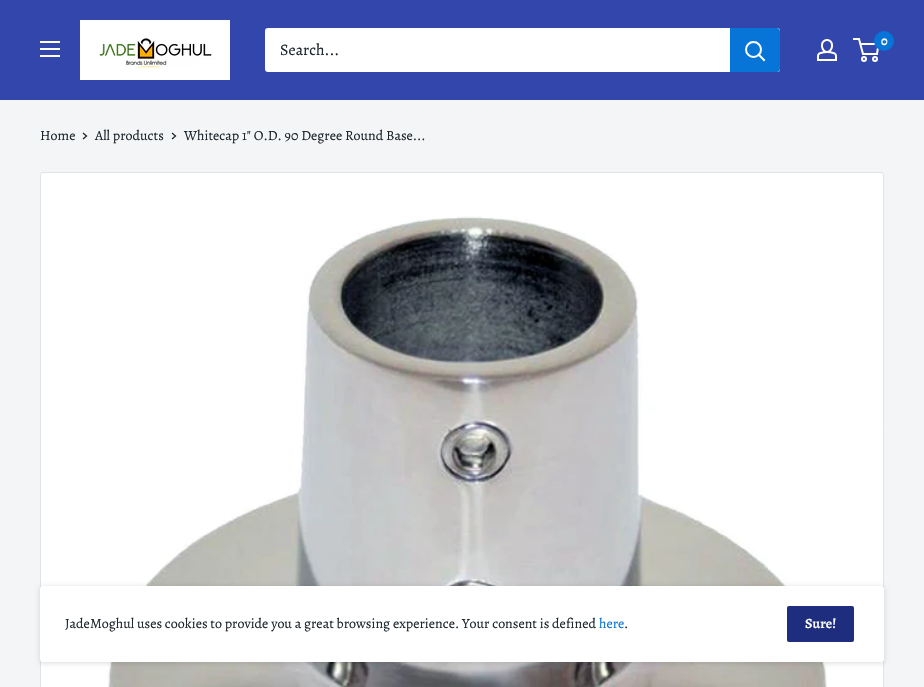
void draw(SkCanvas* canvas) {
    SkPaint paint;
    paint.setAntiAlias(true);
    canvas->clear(0xFFF3F5F6);
    paint.setColor(0xFF3346AC);
    canvas->drawRect(SkRect::MakeXYWH(0, 0, 924, 100), paint);
    canvas->drawImageRect(SkImages::DeferredFromEncodedData(SkData::MakeFromFileName("img1.png")), SkRect::MakeXYWH(40, 41, 20, 16), SkSamplingOptions());
    canvas->drawImageRect(SkImages::DeferredFromEncodedData(SkData::MakeFromFileName("img2.png")), SkRect::MakeXYWH(80, 20, 150, 60), SkSamplingOptions());
    paint.setColor(0xFFFFFFFF);
    canvas->drawRoundRect(SkRect::MakeXYWH(265, 28, 515, 44), 3, 3, paint);
    SkFont font1(fontMgr->matchFamilyStyle("Alegreya", SkFontStyle::Normal()), 16);
    font1.setSubpixel(true);
    paint.setColor(0xFF1B252B);
    canvas->drawString("Search...", 280, 55, font1, paint);
    paint.setColor(0xFF0774D7);
    canvas->drawPath(SkPathBuilder().moveTo(730, 28).lineTo(777, 28).cubicTo(778.5f, 28, 780, 29.5f, 780, 31).lineTo(780, 69).cubicTo(780, 70.5f, 778.5f, 72, 777, 72).lineTo(730, 72).close().detach(), paint);
    paint.setStyle(SkPaint::kStroke_Style);
    paint.setStrokeWidth(2);
    paint.setStrokeCap(SkPaint::kSquare_Cap);
    paint.setColor(0xFFFFFFFF);
    canvas->drawPath(SkPathBuilder().moveTo(764, 60).lineTo(759, 55).detach(), paint);
    paint.setStrokeCap(SkPaint::kButt_Cap);
    canvas->drawCircle(753.5f, 49.5f, 7.5f, paint);
    canvas->drawImageRect(SkImages::DeferredFromEncodedData(SkData::MakeFromFileName("img3.png")), SkRect::MakeXYWH(817, 39, 20, 22), SkSamplingOptions());
    canvas->drawCircle(864, 59, 2, paint);
    canvas->drawCircle(875, 59, 2, paint);
    canvas->drawPath(SkPathBuilder().moveTo(860.5f, 44).lineTo(878.5f, 44).lineTo(877, 54).lineTo(863, 54).lineTo(859, 39).lineTo(853, 39).detach(), paint);
    paint.setStyle(SkPaint::kFill_Style);
    paint.setColor(0xFF0774D7);
    canvas->drawCircle(884, 41, 10, paint);
    SkFont font2(fontMgr->matchFamilyStyle("Alegreya", SkFontStyle(600, SkFontStyle::kNormal_Width, SkFontStyle::kUpright_Slant)), 13);
    font2.setSubpixel(true);
    paint.setColor(0xFFFFFFFF);
    canvas->drawString("0", 881, 45, font2, paint);
    SkFont font3(fontMgr->matchFamilyStyle("Alegreya", SkFontStyle::Normal()), 14);
    font3.setSubpixel(true);
    paint.setColor(0xFF1B252B);
    canvas->drawString("Home", 40, 140, font3, paint);
    paint.setStyle(SkPaint::kStroke_Style);
    paint.setStrokeWidth(1.3f);
    paint.setStrokeCap(SkPaint::kSquare_Cap);
    canvas->drawPath(SkPathBuilder().moveTo(83.5f, 133.5f).lineTo(86.5f, 136).lineTo(83.5f, 138.5f).detach(), paint);
    paint.setStyle(SkPaint::kFill_Style);
    canvas->drawString("All products", 95, 140, font3, paint);
    paint.setStyle(SkPaint::kStroke_Style);
    canvas->drawPath(SkPathBuilder().moveTo(172.5f, 133.5f).lineTo(175.5f, 136).lineTo(172.5f, 138.5f).detach(), paint);
    paint.setStyle(SkPaint::kFill_Style);
    canvas->drawString("Whitecap 1\" O.D. 90 Degree Round Base...", 184, 140, font3, paint);
    paint.setColor(0xFFFFFFFF);
    canvas->drawRoundRect(SkRect::MakeXYWH(40.5f, 172.5f, 843, 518), 2.5f, 2.5f, paint);
    paint.setStyle(SkPaint::kStroke_Style);
    paint.setStrokeWidth(1);
    paint.setStrokeCap(SkPaint::kButt_Cap);
    paint.setColor(0xFFE1E3E4);
    canvas->drawRoundRect(SkRect::MakeXYWH(40.5f, 172.5f, 843, 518), 2.5f, 2.5f, paint);
    canvas->drawImageRect(SkImages::DeferredFromEncodedData(SkData::MakeFromFileName("img4.png")), SkRect::MakeXYWH(106, 216, 722, 471), SkSamplingOptions());
    paint.setStyle(SkPaint::kFill_Style);
    paint.setColor(0x1A000000);
    paint.setMaskFilter(SkMaskFilter::MakeBlur(kNormal_SkBlurStyle, 2));
    canvas->drawRoundRect(SkRect::MakeXYWH(39, 586, 846, 78), 4, 4, paint);
    paint.setMaskFilter(nullptr);
    paint.setColor(0xFFFFFFFF);
    canvas->drawRoundRect(SkRect::MakeXYWH(40, 586, 844, 76), 3, 3, paint);
    paint.setColor(0xFF1B252B);
    canvas->drawString("JadeMoghul uses cookies to provide you a great browsing experience. Your consent is defined", 65, 628, font3, paint);
    paint.setColor(0xFF0774D7);
    canvas->drawString("here", 599, 628, font3, paint);
    paint.setColor(0xFF1B252B);
    canvas->drawString(".", 624, 628, font3, paint);
    paint.setColor(0xFF1E2D7D);
    canvas->drawRoundRect(SkRect::MakeXYWH(787, 606, 67, 36), 2, 2, paint);
    SkFont font4(fontMgr->matchFamilyStyle("Alegreya", SkFontStyle(600, SkFontStyle::kNormal_Width, SkFontStyle::kUpright_Slant)), 14);
    font4.setSubpixel(true);
    paint.setColor(0xFFFFFFFF);
    canvas->drawString("Sure!", 805, 628, font4, paint);
}
